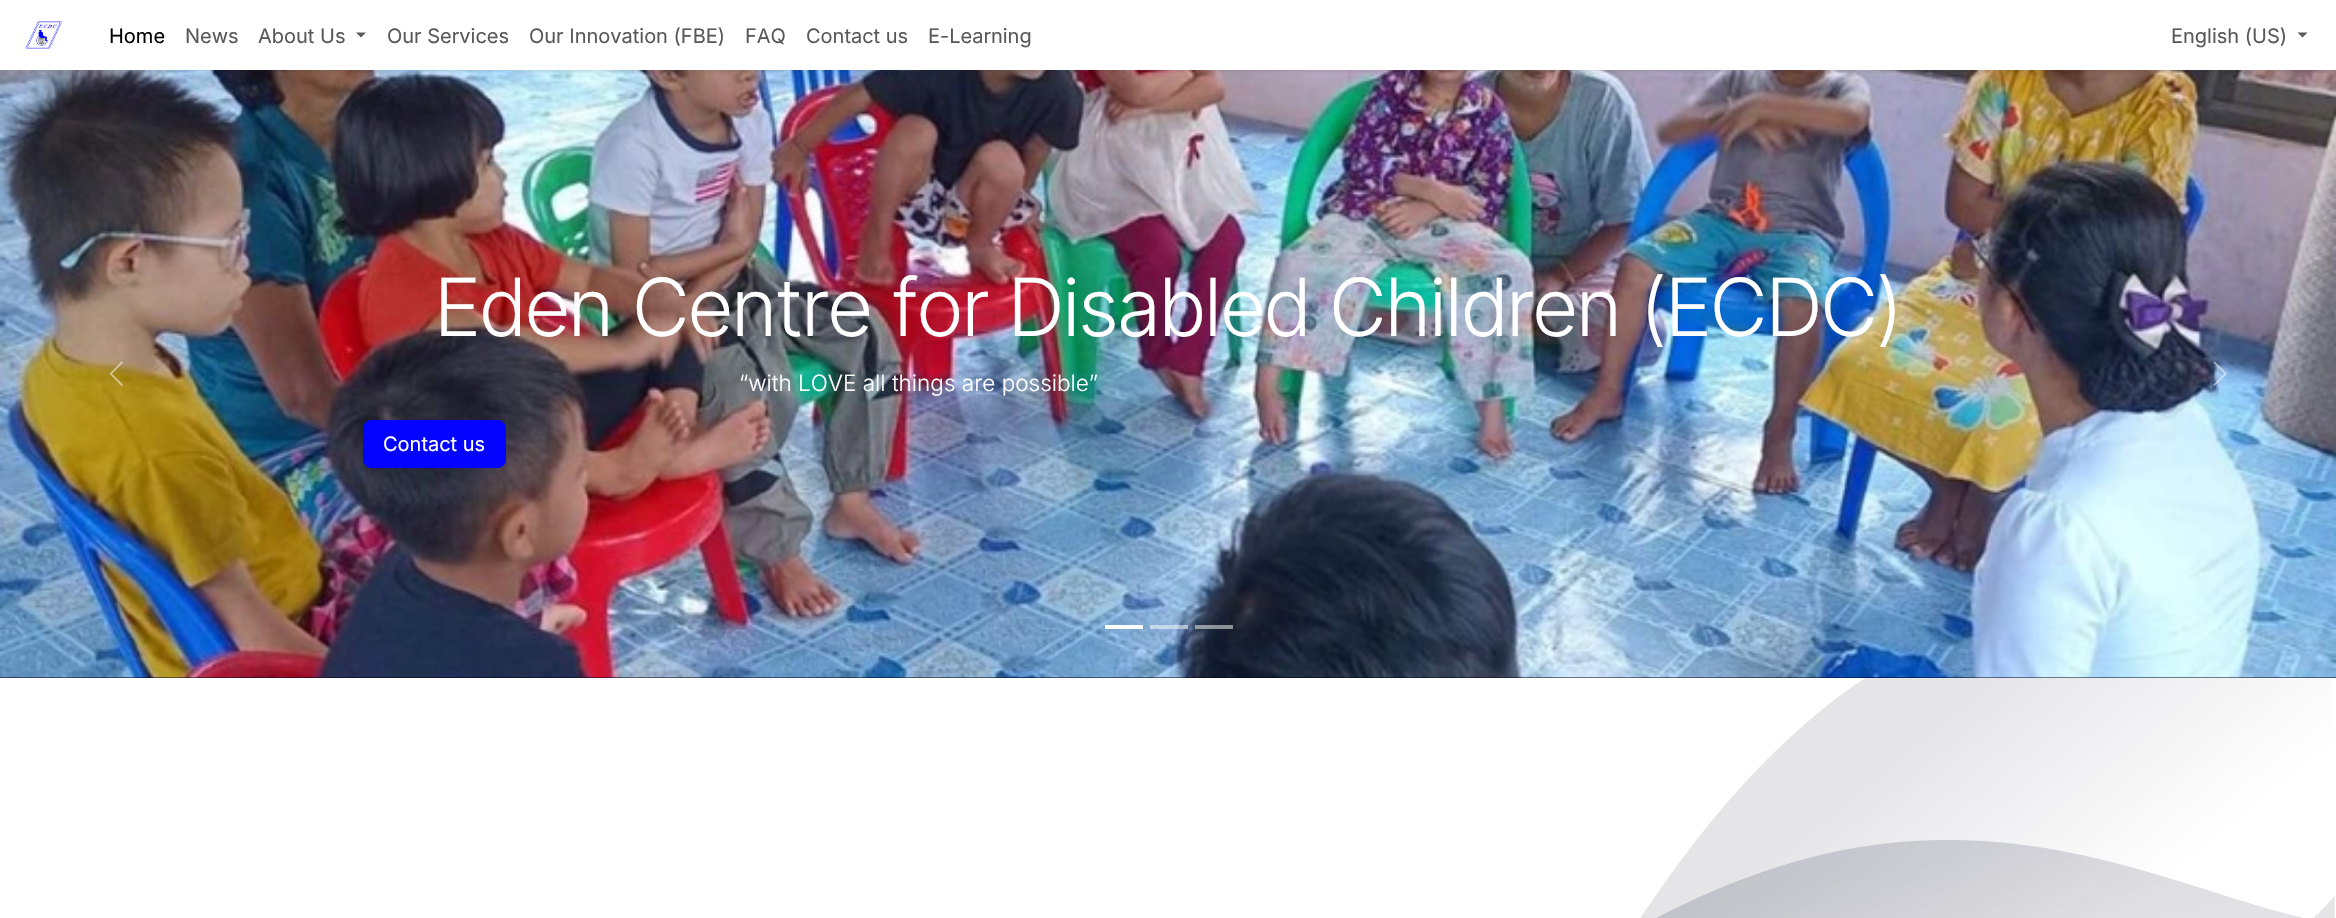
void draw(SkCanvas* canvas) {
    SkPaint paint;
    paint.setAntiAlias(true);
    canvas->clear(0xFFFFFFFF);
    paint.setColor(0xFF000020);
    canvas->drawRect(SkRect::MakeXYWH(0, 677, 2336, 1), paint);
    canvas->drawImageRect(SkImages::DeferredFromEncodedData(SkData::MakeFromFileName("img3.png")), SkRect::MakeXYWH(0, 70, 2336, 608), SkSamplingOptions());
    canvas->save();
    canvas->clipRect(SkRect::MakeXYWH(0, 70, 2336, 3));
    paint.setColor(0x1A000000);
    paint.setMaskFilter(SkMaskFilter::MakeBlur(kNormal_SkBlurStyle, 2));
    canvas->drawRect(SkRect::MakeXYWH(0, 1, 2336, 70), paint);
    paint.setMaskFilter(nullptr);
    canvas->restore();
    canvas->drawImageRect(SkImages::DeferredFromEncodedData(SkData::MakeFromFileName("img1.png")), SkRect::MakeXYWH(25, 21, 37, 28), SkSamplingOptions());
    SkFont font1(fontMgr->matchFamilyStyle("Inter", SkFontStyle::Normal()), 20);
    font1.setSubpixel(true);
    paint.setColor(0xFF000000);
    canvas->drawString("Home", 109, 43, font1, paint);
    paint.setColor(0xFF595959);
    canvas->drawString("News", 185, 43, font1, paint);
    canvas->drawString("About Us", 258, 43, font1, paint);
    canvas->drawPath(SkPathBuilder().moveTo(356, 32.5f).lineTo(366, 32.5f).lineTo(361, 37.5f).close().detach(), paint);
    canvas->drawString("Our Services", 387, 43, font1, paint);
    canvas->drawString("Our Innovation (FBE)", 529, 43, font1, paint);
    canvas->drawString("FAQ", 745, 43, font1, paint);
    canvas->drawString("Contact us", 806, 43, font1, paint);
    canvas->drawString("E-Learning", 928, 43, font1, paint);
    canvas->drawString("English (US)", 2171, 43, font1, paint);
    canvas->drawPath(SkPathBuilder().moveTo(2297.5f, 32.5f).lineTo(2307.5f, 32.5f).lineTo(2302.5f, 37.5f).close().detach(), paint);
    canvas->drawImageRect(SkImages::DeferredFromEncodedData(SkData::MakeFromFileName("img2.png")), SkRect::MakeXYWH(109, 361, 14, 25), SkSamplingOptions());
    SkFont font2(fontMgr->matchFamilyStyle("Inter Tight", SkFontStyle(300, SkFontStyle::kNormal_Width, SkFontStyle::kUpright_Slant)), 80);
    font2.setSubpixel(true);
    paint.setColor(0xFFFFFFFF);
    canvas->drawString("Eden Centre for Disabled Children (ECDC)", 435, 336, font2, paint);
    SkFont font3(fontMgr->matchFamilyStyle("Inter", SkFontStyle(300, SkFontStyle::kNormal_Width, SkFontStyle::kUpright_Slant)), 22.5f);
    font3.setSubpixel(true);
    canvas->drawString("“with LOVE all things are possible”", 739, 391, font3, paint);
    paint.setColor(0xFF0303FF);
    canvas->drawRoundRect(SkRect::MakeXYWH(363.5f, 420.5f, 142, 47), 7.5f, 7.5f, paint);
    paint.setStyle(SkPaint::kStroke_Style);
    paint.setStrokeWidth(1);
    canvas->drawRoundRect(SkRect::MakeXYWH(363.5f, 420.5f, 142, 47), 7.5f, 7.5f, paint);
    paint.setStyle(SkPaint::kFill_Style);
    paint.setColor(0xFFFFFFFF);
    canvas->drawString("Contact us", 383, 451, font1, paint);
    canvas->drawImageRect(SkImages::DeferredFromEncodedData(SkData::MakeFromFileName("img4.png")), SkRect::MakeXYWH(2213, 361, 14, 25), SkSamplingOptions());
    canvas->drawRect(SkRect::MakeXYWH(1105, 625, 38, 4), paint);
    paint.setColor(0x80FFFFFF);
    canvas->drawRect(SkRect::MakeXYWH(1150, 625, 38, 4), paint);
    canvas->drawRect(SkRect::MakeXYWH(1195, 625, 38, 4), paint);
    canvas->drawImageRect(SkImages::DeferredFromEncodedData(SkData::MakeFromFileName("img5.png")), SkRect::MakeXYWH(1640, 678, 695, 240), SkSamplingOptions());
}
